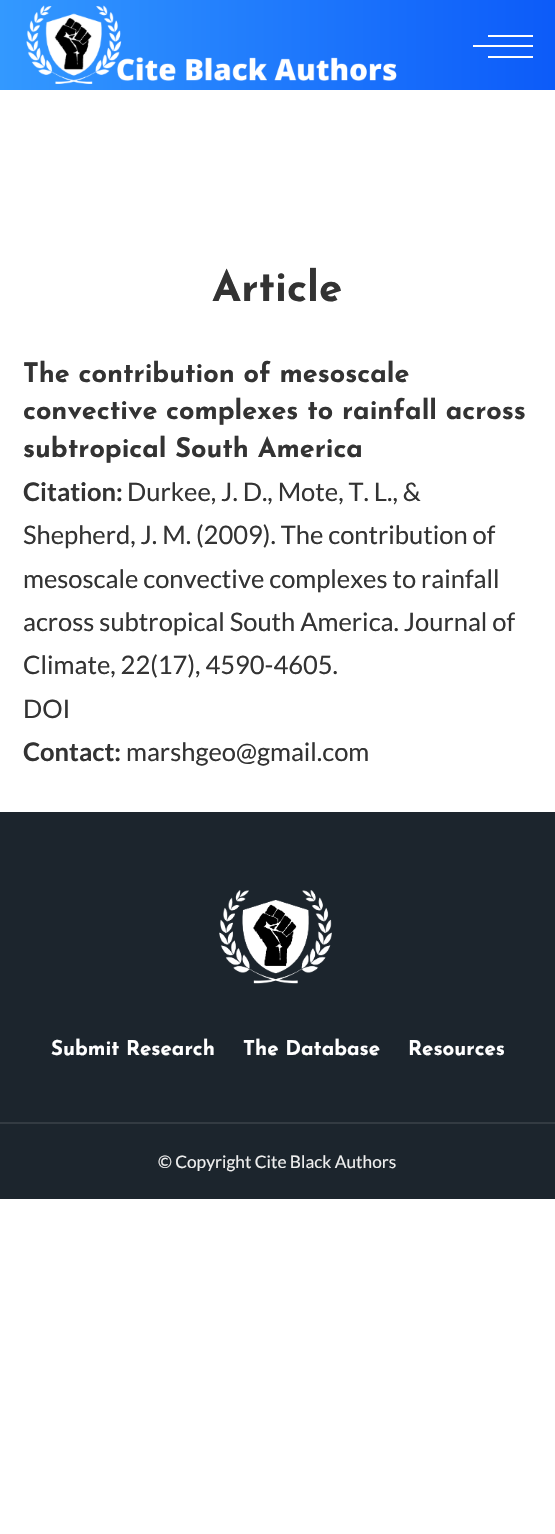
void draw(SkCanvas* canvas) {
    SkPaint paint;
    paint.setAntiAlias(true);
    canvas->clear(0xFFFFFFFF);
    {
        const SkColor colors[] = {0xFF3399FF, 0xFF0C5BF9};
        const float stops[] = {0, 1};
        const SkPoint ends[] = {{0, 45}, {555, 45}};
        paint.setShader(SkGradientShader::MakeLinear(ends, colors, stops, 2, SkTileMode::kClamp));
        paint.setAlpha(255);
    }
    canvas->drawRect(SkRect::MakeXYWH(0, 0, 555, 90), paint);
    canvas->drawImageRect(SkImages::DeferredFromEncodedData(SkData::MakeFromFileName("img1.png")), SkRect::MakeXYWH(26, 5, 371, 79), SkSamplingOptions());
    paint.setShader(nullptr);
    paint.setColor(0xFFFFFFFF);
    canvas->drawRect(SkRect::MakeXYWH(473, 45, 60, 2), paint);
    canvas->drawRect(SkRect::MakeXYWH(488, 35, 45, 2), paint);
    canvas->drawRect(SkRect::MakeXYWH(488, 56, 45, 2), paint);
    SkFont font1(fontMgr->matchFamilyStyle("Josefin Sans", SkFontStyle(100, SkFontStyle::kNormal_Width, SkFontStyle::kUpright_Slant)), 42);
    font1.setSubpixel(true);
    paint.setColor(0xFF333333);
    canvas->drawString("Article", 212, 301, font1, paint);
    SkFont font2(fontMgr->matchFamilyStyle("Josefin Sans", SkFontStyle(100, SkFontStyle::kNormal_Width, SkFontStyle::kUpright_Slant)), 27);
    font2.setSubpixel(true);
    canvas->drawString("The contribution of mesoscale", 23, 382, font2, paint);
    canvas->drawString("convective complexes to rainfall across", 23, 419, font2, paint);
    canvas->drawString("subtropical South America", 23, 457, font2, paint);
    SkFont font3(fontMgr->matchFamilyStyle("Lato", SkFontStyle::Bold()), 25.5f);
    font3.setSubpixel(true);
    canvas->drawString("Citation:", 23, 501, font3, paint);
    SkFont font4(fontMgr->matchFamilyStyle("Lato", SkFontStyle::Normal()), 25.5f);
    font4.setSubpixel(true);
    canvas->drawString("Durkee, J. D., Mote, T. L., &", 127, 501, font4, paint);
    canvas->drawString("Shepherd, J. M. (2009). The contribution of", 23, 544, font4, paint);
    canvas->drawString("mesoscale convective complexes to rainfall", 23, 588, font4, paint);
    canvas->drawString("across subtropical South America. Journal of", 23, 631, font4, paint);
    canvas->drawString("Climate, 22(17), 4590-4605.", 23, 674, font4, paint);
    canvas->drawString("DOI", 23, 718, font4, paint);
    canvas->drawString("Contact:", 23, 761, font3, paint);
    canvas->drawString("marshgeo@gmail.com", 126, 761, font4, paint);
    paint.setColor(0xFF1C252D);
    canvas->drawRect(SkRect::MakeXYWH(0, 812, 555, 387), paint);
    canvas->drawImageRect(SkImages::DeferredFromEncodedData(SkData::MakeFromFileName("img2.png")), SkRect::MakeXYWH(219, 890, 113, 94), SkSamplingOptions());
    SkFont font5(fontMgr->matchFamilyStyle("Josefin Sans", SkFontStyle(100, SkFontStyle::kNormal_Width, SkFontStyle::kUpright_Slant)), 20.5f);
    font5.setSubpixel(true);
    paint.setColor(0xFFFFFFFF);
    canvas->drawString("Submit Research", 51, 1055, font5, paint);
    canvas->drawString("The Database", 243, 1055, font5, paint);
    canvas->drawString("Resources", 408, 1055, font5, paint);
    paint.setColor(0xFF333B42);
    canvas->drawRect(SkRect::MakeXYWH(0, 1122, 555, 2), paint);
    SkFont font6(fontMgr->matchFamilyStyle("Lato", SkFontStyle::Normal()), 17.3f);
    font6.setSubpixel(true);
    paint.setColor(0xFFEFEFEF);
    canvas->drawString("© Copyright Cite Black Authors", 158, 1168, font6, paint);
}
